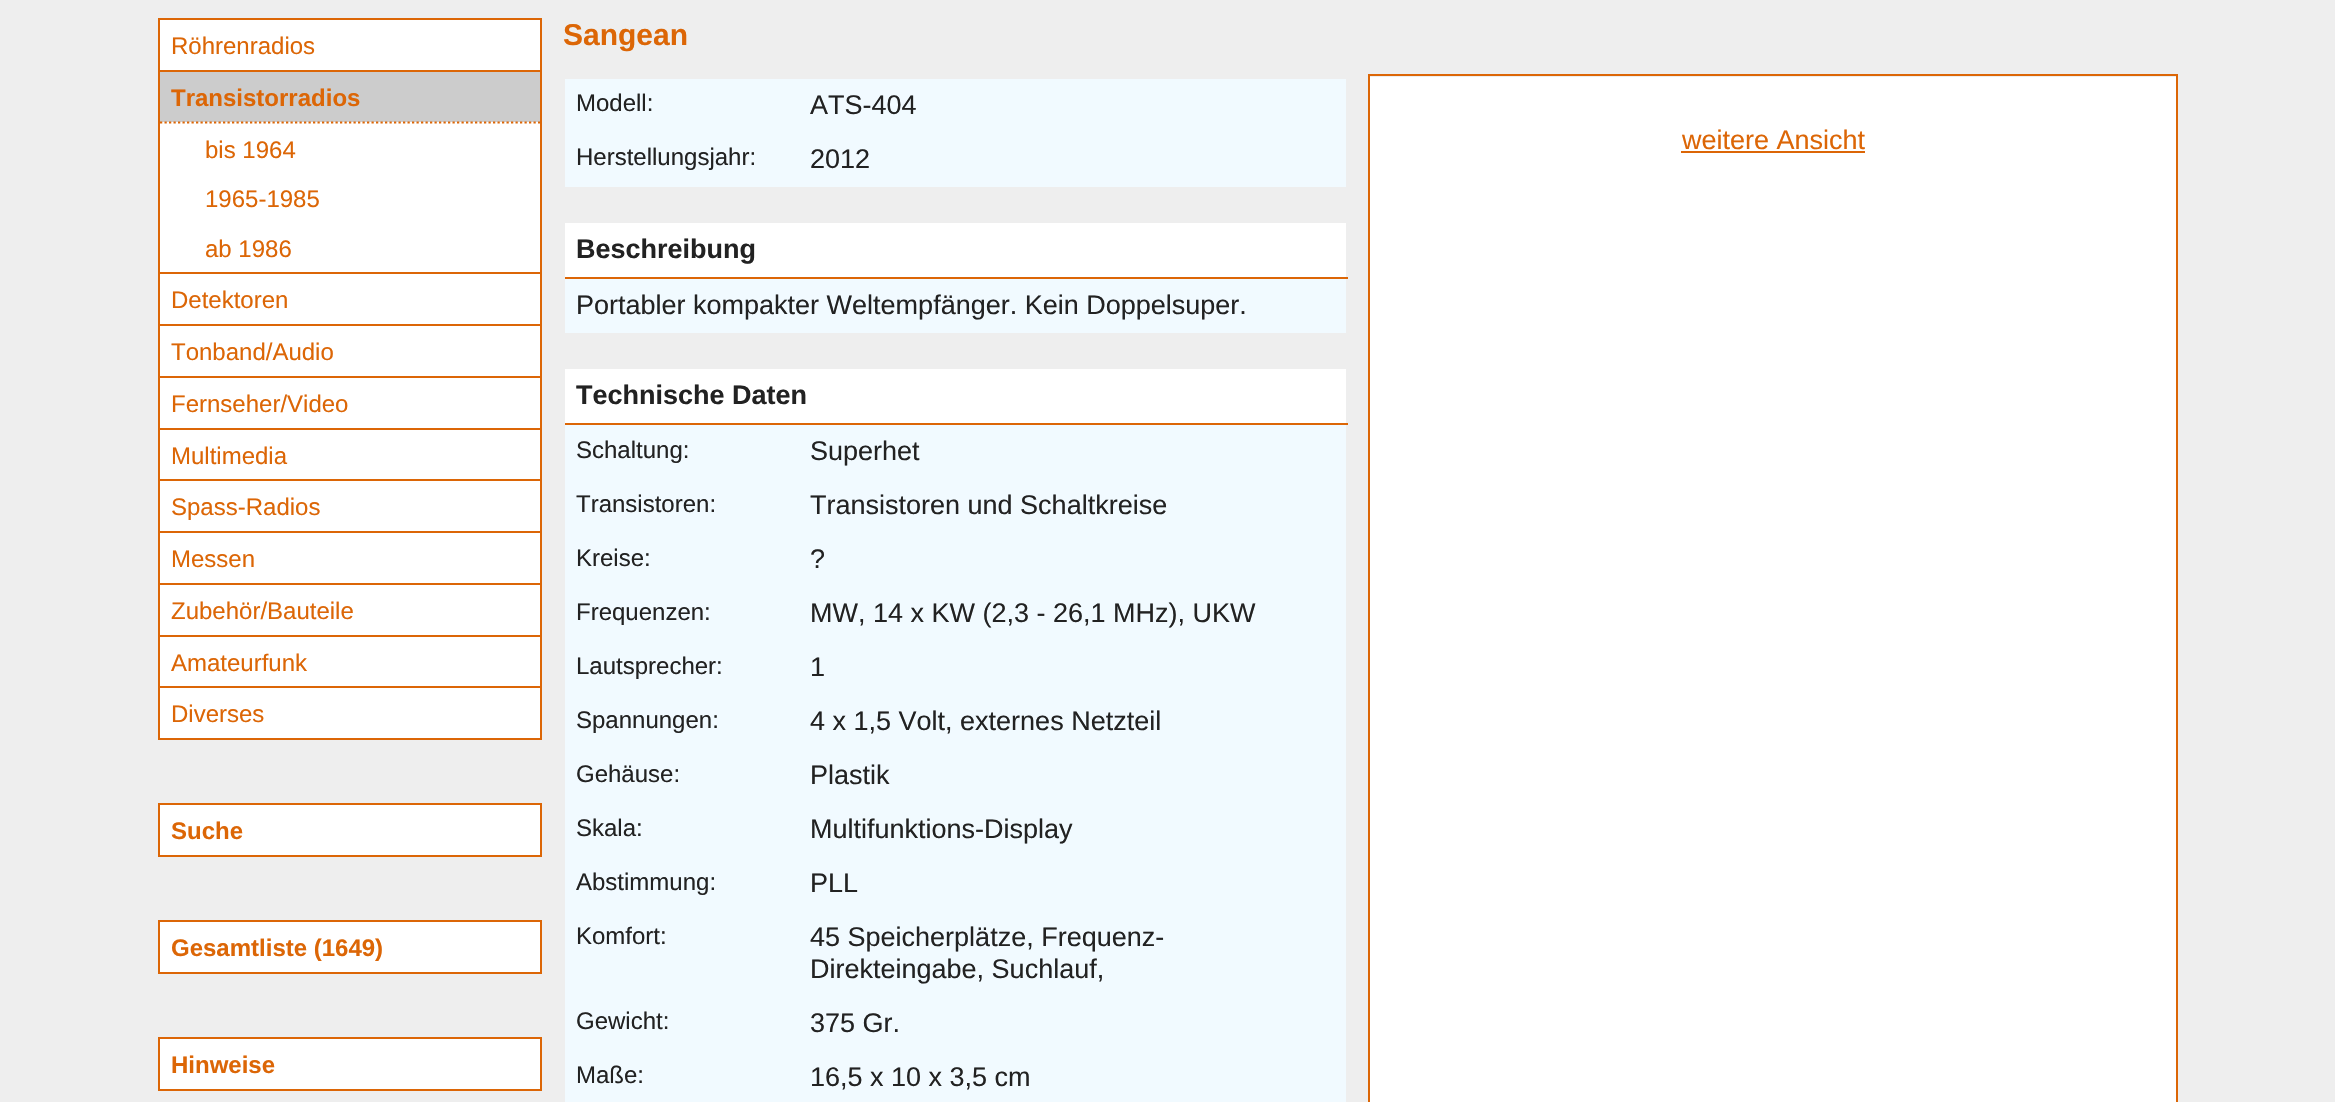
void draw(SkCanvas* canvas) {
    SkPaint paint;
    paint.setAntiAlias(true);
    canvas->clear(0xFFEEEEEE);
    paint.setColor(0xFFFFFFFF);
    canvas->drawRect(SkRect::MakeXYWH(160, 20, 380, 718), paint);
    paint.setColor(0xFFDC6606);
    canvas->drawRect(SkRect::MakeXYWH(540, 18, 2, 722), paint);
    canvas->drawRect(SkRect::MakeXYWH(158, 738, 384, 2), paint);
    canvas->drawRect(SkRect::MakeXYWH(158, 18, 2, 722), paint);
    canvas->drawRect(SkRect::MakeXYWH(160, 18, 380, 2), paint);
    SkFont font1(fontMgr->matchFamilyStyle("Liberation Sans", SkFontStyle::Normal()), 24);
    font1.setSubpixel(true);
    canvas->drawString("Röhrenradios", 171, 54, font1, paint);
    paint.setColor(0xFFCCCCCC);
    canvas->drawRect(SkRect::MakeXYWH(160, 72, 380, 50), paint);
    paint.setColor(0xFFDC6606);
    canvas->drawRect(SkRect::MakeXYWH(160, 70, 380, 2), paint);
    SkFont font2(fontMgr->matchFamilyStyle("Liberation Sans", SkFontStyle::Bold()), 24);
    font2.setSubpixel(true);
    canvas->drawString("Transistorradios", 171, 106, font2, paint);
    paint.setStyle(SkPaint::kStroke_Style);
    paint.setStrokeWidth(2.2f);
    paint.setPathEffect(SkDashPathEffect::Make({{2.25f, 2.25f}}, 0));
    canvas->drawPath(SkPathBuilder().moveTo(160, 122.5f).lineTo(540, 122.5f).detach(), paint);
    paint.setPathEffect(nullptr);
    paint.setStyle(SkPaint::kFill_Style);
    canvas->drawString("bis 1964", 205, 158, font1, paint);
    canvas->drawString("1965-1985", 205, 207, font1, paint);
    canvas->drawString("ab 1986", 205, 257, font1, paint);
    canvas->drawRect(SkRect::MakeXYWH(160, 272, 380, 2), paint);
    canvas->drawString("Detektoren", 171, 308, font1, paint);
    canvas->drawRect(SkRect::MakeXYWH(160, 324, 380, 2), paint);
    canvas->drawString("Tonband/Audio", 171, 360, font1, paint);
    canvas->drawRect(SkRect::MakeXYWH(160, 376, 380, 2), paint);
    canvas->drawString("Fernseher/Video", 171, 412, font1, paint);
    canvas->drawRect(SkRect::MakeXYWH(160, 428, 380, 2), paint);
    canvas->drawString("Multimedia", 171, 464, font1, paint);
    canvas->drawRect(SkRect::MakeXYWH(160, 479, 380, 2), paint);
    canvas->drawString("Spass-Radios", 171, 515, font1, paint);
    canvas->drawRect(SkRect::MakeXYWH(160, 531, 380, 2), paint);
    canvas->drawString("Messen", 171, 567, font1, paint);
    canvas->drawRect(SkRect::MakeXYWH(160, 583, 380, 2), paint);
    canvas->drawString("Zubehör/Bauteile", 171, 619, font1, paint);
    canvas->drawRect(SkRect::MakeXYWH(160, 635, 380, 2), paint);
    canvas->drawString("Amateurfunk", 171, 671, font1, paint);
    canvas->drawRect(SkRect::MakeXYWH(160, 686, 380, 2), paint);
    canvas->drawString("Diverses", 171, 722, font1, paint);
    paint.setColor(0xFFFFFFFF);
    canvas->drawRect(SkRect::MakeXYWH(160, 805, 380, 50), paint);
    paint.setColor(0xFFDC6606);
    canvas->drawRect(SkRect::MakeXYWH(540, 803, 2, 54), paint);
    canvas->drawRect(SkRect::MakeXYWH(158, 855, 384, 2), paint);
    canvas->drawRect(SkRect::MakeXYWH(158, 803, 2, 54), paint);
    canvas->drawRect(SkRect::MakeXYWH(160, 803, 380, 2), paint);
    canvas->drawString("Suche", 171, 839, font2, paint);
    paint.setColor(0xFFFFFFFF);
    canvas->drawRect(SkRect::MakeXYWH(160, 922, 380, 50), paint);
    paint.setColor(0xFFDC6606);
    canvas->drawRect(SkRect::MakeXYWH(540, 920, 2, 54), paint);
    canvas->drawRect(SkRect::MakeXYWH(158, 972, 384, 2), paint);
    canvas->drawRect(SkRect::MakeXYWH(158, 920, 2, 54), paint);
    canvas->drawRect(SkRect::MakeXYWH(160, 920, 380, 2), paint);
    canvas->drawString("Gesamtliste (1649)", 171, 956, font2, paint);
    paint.setColor(0xFFFFFFFF);
    canvas->drawRect(SkRect::MakeXYWH(160, 1039, 380, 50), paint);
    paint.setColor(0xFFDC6606);
    canvas->drawRect(SkRect::MakeXYWH(540, 1037, 2, 54), paint);
    canvas->drawRect(SkRect::MakeXYWH(158, 1089, 384, 2), paint);
    canvas->drawRect(SkRect::MakeXYWH(158, 1037, 2, 54), paint);
    canvas->drawRect(SkRect::MakeXYWH(160, 1037, 380, 2), paint);
    canvas->drawString("Hinweise", 171, 1073, font2, paint);
    SkFont font3(fontMgr->matchFamilyStyle("Liberation Sans", SkFontStyle::Bold()), 30);
    font3.setSubpixel(true);
    canvas->drawString("Sangean", 563, 45, font3, paint);
    paint.setColor(0xFFF1FAFF);
    canvas->drawRect(SkRect::MakeXYWH(565, 79, 781, 54), paint);
    paint.setColor(0xFF222222);
    canvas->drawString("Modell:", 576, 111, font1, paint);
    SkFont font4(fontMgr->matchFamilyStyle("Liberation Sans", SkFontStyle::Normal()), 27);
    font4.setSubpixel(true);
    canvas->drawString("ATS-404", 810, 114, font4, paint);
    paint.setColor(0xFFF1FAFF);
    canvas->drawRect(SkRect::MakeXYWH(565, 133, 781, 54), paint);
    paint.setColor(0xFF222222);
    canvas->drawString("Herstellungsjahr:", 576, 165, font1, paint);
    canvas->drawString("2012", 810, 168, font4, paint);
    paint.setColor(0xFFFFFFFF);
    canvas->drawRect(SkRect::MakeXYWH(565, 223, 781, 54), paint);
    paint.setColor(0xFFDC6606);
    canvas->drawRect(SkRect::MakeXYWH(565, 277, 783, 2), paint);
    SkFont font5(fontMgr->matchFamilyStyle("Liberation Sans", SkFontStyle::Bold()), 27);
    font5.setSubpixel(true);
    paint.setColor(0xFF222222);
    canvas->drawString("Beschreibung", 576, 258, font5, paint);
    paint.setColor(0xFFF1FAFF);
    canvas->drawRect(SkRect::MakeXYWH(565, 279, 781, 54), paint);
    paint.setColor(0xFF222222);
    canvas->drawString("Portabler kompakter Weltempfänger. Kein Doppelsuper.", 576, 314, font4, paint);
    paint.setColor(0xFFFFFFFF);
    canvas->drawRect(SkRect::MakeXYWH(565, 369, 781, 54), paint);
    paint.setColor(0xFFDC6606);
    canvas->drawRect(SkRect::MakeXYWH(565, 423, 783, 2), paint);
    paint.setColor(0xFF222222);
    canvas->drawString("Technische Daten", 576, 404, font5, paint);
    paint.setColor(0xFFF1FAFF);
    canvas->drawRect(SkRect::MakeXYWH(565, 425, 781, 54), paint);
    paint.setColor(0xFF222222);
    canvas->drawString("Schaltung:", 576, 458, font1, paint);
    canvas->drawString("Superhet", 810, 460, font4, paint);
    paint.setColor(0xFFF1FAFF);
    canvas->drawRect(SkRect::MakeXYWH(565, 479, 781, 54), paint);
    paint.setColor(0xFF222222);
    canvas->drawString("Transistoren:", 576, 512, font1, paint);
    canvas->drawString("Transistoren und Schaltkreise", 810, 514, font4, paint);
    paint.setColor(0xFFF1FAFF);
    canvas->drawRect(SkRect::MakeXYWH(565, 533, 781, 54), paint);
    paint.setColor(0xFF222222);
    canvas->drawString("Kreise:", 576, 566, font1, paint);
    canvas->drawString("?", 810, 568, font4, paint);
    paint.setColor(0xFFF1FAFF);
    canvas->drawRect(SkRect::MakeXYWH(565, 587, 781, 54), paint);
    paint.setColor(0xFF222222);
    canvas->drawString("Frequenzen:", 576, 620, font1, paint);
    canvas->drawString("MW, 14 x KW (2,3 - 26,1 MHz), UKW", 810, 622, font4, paint);
    paint.setColor(0xFFF1FAFF);
    canvas->drawRect(SkRect::MakeXYWH(565, 641, 781, 54), paint);
    paint.setColor(0xFF222222);
    canvas->drawString("Lautsprecher:", 576, 674, font1, paint);
    canvas->drawString("1", 810, 676, font4, paint);
    paint.setColor(0xFFF1FAFF);
    canvas->drawRect(SkRect::MakeXYWH(565, 695, 781, 54), paint);
    paint.setColor(0xFF222222);
    canvas->drawString("Spannungen:", 576, 728, font1, paint);
    canvas->drawString("4 x 1,5 Volt, externes Netzteil", 810, 730, font4, paint);
    paint.setColor(0xFFF1FAFF);
    canvas->drawRect(SkRect::MakeXYWH(565, 749, 781, 54), paint);
    paint.setColor(0xFF222222);
    canvas->drawString("Gehäuse:", 576, 782, font1, paint);
    canvas->drawString("Plastik", 810, 784, font4, paint);
    paint.setColor(0xFFF1FAFF);
    canvas->drawRect(SkRect::MakeXYWH(565, 803, 781, 54), paint);
    paint.setColor(0xFF222222);
    canvas->drawString("Skala:", 576, 836, font1, paint);
    canvas->drawString("Multifunktions-Display", 810, 838, font4, paint);
    paint.setColor(0xFFF1FAFF);
    canvas->drawRect(SkRect::MakeXYWH(565, 857, 781, 54), paint);
    paint.setColor(0xFF222222);
    canvas->drawString("Abstimmung:", 576, 890, font1, paint);
    canvas->drawString("PLL", 810, 892, font4, paint);
    paint.setColor(0xFFF1FAFF);
    canvas->drawRect(SkRect::MakeXYWH(565, 911, 781, 86), paint);
    paint.setColor(0xFF222222);
    canvas->drawString("Komfort:", 576, 944, font1, paint);
    canvas->drawString("45 Speicherplätze, Frequenz-", 810, 946, font4, paint);
    canvas->drawString("Direkteingabe, Suchlauf,", 810, 978, font4, paint);
    paint.setColor(0xFFF1FAFF);
    canvas->drawRect(SkRect::MakeXYWH(565, 997, 781, 54), paint);
    paint.setColor(0xFF222222);
    canvas->drawString("Gewicht:", 576, 1029, font1, paint);
    canvas->drawString("375 Gr.", 810, 1032, font4, paint);
    paint.setColor(0xFFF1FAFF);
    canvas->drawRect(SkRect::MakeXYWH(565, 1051, 781, 51), paint);
    paint.setColor(0xFF222222);
    canvas->drawString("Maße:", 576, 1083, font1, paint);
    canvas->drawString("16,5 x 10 x 3,5 cm", 810, 1086, font4, paint);
    paint.setColor(0xFFFFFFFF);
    canvas->drawRect(SkRect::MakeXYWH(1370, 77, 806, 1025), paint);
    paint.setColor(0xFFDC6606);
    canvas->drawRect(SkRect::MakeXYWH(1368, 74, 810, 2), paint);
    canvas->drawRect(SkRect::MakeXYWH(2176, 74, 2, 1028), paint);
    canvas->drawRect(SkRect::MakeXYWH(1368, 74, 2, 1028), paint);
    canvas->drawString("weitere Ansicht", 1682, 149, font4, paint);
    canvas->drawRect(SkRect::MakeXYWH(1681, 151, 184, 2), paint);
}
